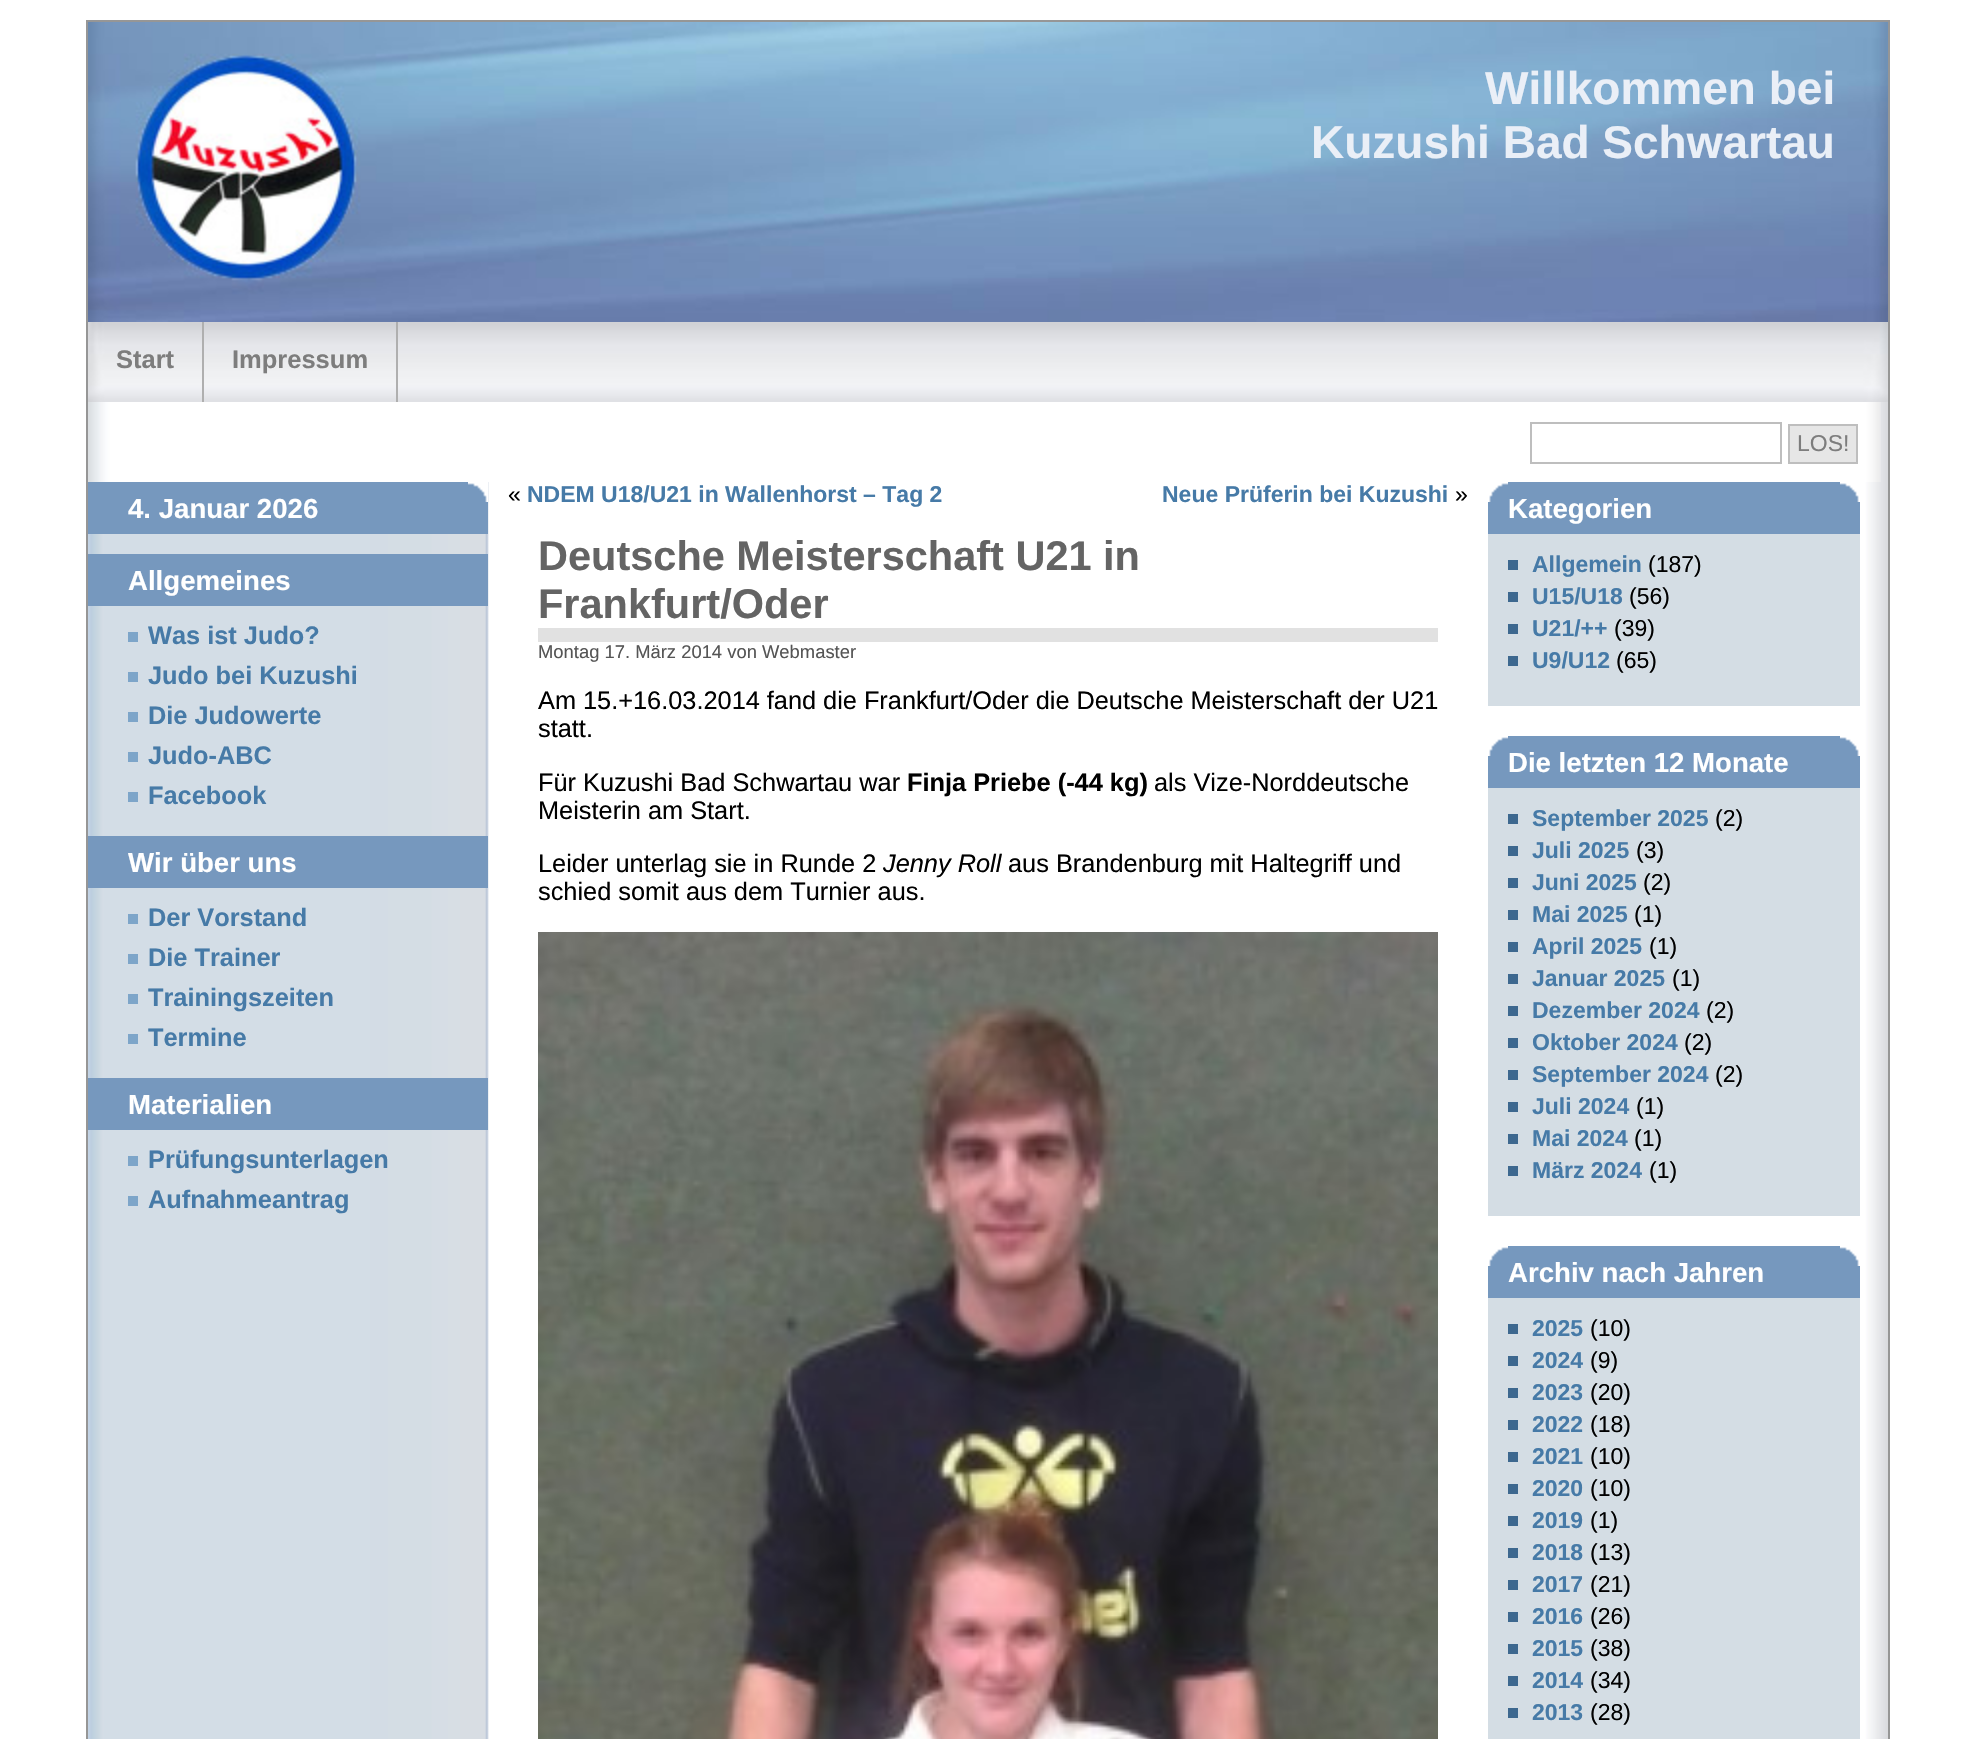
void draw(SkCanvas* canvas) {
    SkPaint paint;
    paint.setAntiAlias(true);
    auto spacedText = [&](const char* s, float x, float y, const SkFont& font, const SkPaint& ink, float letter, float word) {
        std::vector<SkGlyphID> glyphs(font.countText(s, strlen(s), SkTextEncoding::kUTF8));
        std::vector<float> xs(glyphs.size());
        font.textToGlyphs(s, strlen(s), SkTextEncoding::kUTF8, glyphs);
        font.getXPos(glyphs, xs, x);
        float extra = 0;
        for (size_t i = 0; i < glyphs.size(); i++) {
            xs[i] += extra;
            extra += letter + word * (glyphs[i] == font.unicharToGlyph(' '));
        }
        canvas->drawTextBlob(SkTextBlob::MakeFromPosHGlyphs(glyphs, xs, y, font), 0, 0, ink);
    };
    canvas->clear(0xFFFFFFFF);
    canvas->drawImageRect(SkImages::DeferredFromEncodedData(SkData::MakeFromFileName("img1.png")), SkRect::MakeXYWH(88, 402, 1800, 1337), SkSamplingOptions());
    paint.setStyle(SkPaint::kStroke_Style);
    paint.setStrokeWidth(2);
    paint.setColor(0xFF969696);
    canvas->drawRect(SkRect::MakeXYWH(87, 21, 1802, 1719), paint);
    canvas->drawImageRect(SkImages::DeferredFromEncodedData(SkData::MakeFromFileName("img2.png")), SkRect::MakeXYWH(88, 22, 1800, 300), SkSamplingOptions());
    SkFont font1(fontMgr->matchFamilyStyle("Liberation Sans", SkFontStyle::Bold()), 46);
    font1.setSubpixel(true);
    paint.setStyle(SkPaint::kFill_Style);
    paint.setColor(0xFFEAEFF7);
    canvas->drawString("Willkommen bei", 1485, 104, font1, paint);
    canvas->drawString("Kuzushi Bad Schwartau", 1311, 158, font1, paint);
    canvas->drawImageRect(SkImages::DeferredFromEncodedData(SkData::MakeFromFileName("img3.png")), SkRect::MakeXYWH(88, 322, 1800, 80), SkSamplingOptions());
    paint.setColor(0xFFAFAFAF);
    canvas->drawRect(SkRect::MakeXYWH(202, 322, 2, 80), paint);
    SkFont font2(fontMgr->matchFamilyStyle("Liberation Sans", SkFontStyle::Bold()), 25.5f);
    font2.setSubpixel(true);
    paint.setColor(0xFF7D7D7D);
    canvas->drawString("Start", 116, 368, font2, paint);
    paint.setColor(0xFFAFAFAF);
    canvas->drawRect(SkRect::MakeXYWH(396, 322, 2, 80), paint);
    paint.setColor(0xFF7D7D7D);
    canvas->drawString("Impressum", 232, 368, font2, paint);
    canvas->drawImageRect(SkImages::DeferredFromEncodedData(SkData::MakeFromFileName("img4.png")), SkRect::MakeXYWH(88, 402, 1793, 80), SkSamplingOptions());
    paint.setStyle(SkPaint::kStroke_Style);
    paint.setColor(0xFFBEBEBE);
    canvas->drawRect(SkRect::MakeXYWH(1531, 423, 250, 40), paint);
    paint.setStyle(SkPaint::kFill_Style);
    paint.setColor(0xFFE6E6E6);
    canvas->drawRect(SkRect::MakeXYWH(1789, 425, 68, 38), paint);
    paint.setStyle(SkPaint::kStroke_Style);
    paint.setColor(0xFFBEBEBE);
    canvas->drawRect(SkRect::MakeXYWH(1789, 425, 68, 38), paint);
    SkFont font3(fontMgr->matchFamilyStyle("Liberation Sans", SkFontStyle::Normal()), 23);
    font3.setSubpixel(true);
    paint.setStyle(SkPaint::kFill_Style);
    paint.setColor(0xFF7D7D7D);
    canvas->drawString("LOS!", 1797, 451, font3, paint);
    paint.setColor(0xFF7698BE);
    canvas->drawRect(SkRect::MakeXYWH(88, 482, 400, 52), paint);
    canvas->drawImageRect(SkImages::DeferredFromEncodedData(SkData::MakeFromFileName("img5.png")), SkRect::MakeXYWH(468, 482, 20, 20), SkSamplingOptions());
    SkFont font4(fontMgr->matchFamilyStyle("Liberation Sans", SkFontStyle::Bold()), 27.6f);
    font4.setSubpixel(true);
    paint.setColor(0xFFFFFFFF);
    canvas->drawString("4. Januar 2026", 128, 518, font4, paint);
    paint.setColor(0xFF7698BE);
    canvas->drawRect(SkRect::MakeXYWH(88, 554, 400, 52), paint);
    paint.setColor(0xFFFFFFFF);
    canvas->drawString("Allgemeines", 128, 590, font4, paint);
    SkFont font5(fontMgr->matchFamilyStyle("Liberation Sans", SkFontStyle::Bold()), 25.35f);
    font5.setSubpixel(true);
    paint.setColor(0xFF467AA7);
    canvas->drawString("Was ist Judo?", 148, 644, font5, paint);
    paint.setColor(0xFF7DA5C9);
    canvas->drawRect(SkRect::MakeXYWH(128, 632, 10, 10), paint);
    paint.setColor(0xFF467AA7);
    canvas->drawString("Judo bei Kuzushi", 148, 684, font5, paint);
    paint.setColor(0xFF7DA5C9);
    canvas->drawRect(SkRect::MakeXYWH(128, 672, 10, 10), paint);
    paint.setColor(0xFF467AA7);
    canvas->drawString("Die Judowerte", 148, 724, font5, paint);
    paint.setColor(0xFF7DA5C9);
    canvas->drawRect(SkRect::MakeXYWH(128, 712, 10, 10), paint);
    paint.setColor(0xFF467AA7);
    canvas->drawString("Judo-ABC", 148, 764, font5, paint);
    paint.setColor(0xFF7DA5C9);
    canvas->drawRect(SkRect::MakeXYWH(128, 752, 10, 10), paint);
    paint.setColor(0xFF467AA7);
    canvas->drawString("Facebook", 148, 804, font5, paint);
    paint.setColor(0xFF7DA5C9);
    canvas->drawRect(SkRect::MakeXYWH(128, 792, 10, 10), paint);
    paint.setColor(0xFF7698BE);
    canvas->drawRect(SkRect::MakeXYWH(88, 836, 400, 52), paint);
    paint.setColor(0xFFFFFFFF);
    canvas->drawString("Wir über uns", 128, 872, font4, paint);
    paint.setColor(0xFF467AA7);
    canvas->drawString("Der Vorstand", 148, 926, font5, paint);
    paint.setColor(0xFF7DA5C9);
    canvas->drawRect(SkRect::MakeXYWH(128, 914, 10, 10), paint);
    paint.setColor(0xFF467AA7);
    canvas->drawString("Die Trainer", 148, 966, font5, paint);
    paint.setColor(0xFF7DA5C9);
    canvas->drawRect(SkRect::MakeXYWH(128, 954, 10, 10), paint);
    paint.setColor(0xFF467AA7);
    canvas->drawString("Trainingszeiten", 148, 1006, font5, paint);
    paint.setColor(0xFF7DA5C9);
    canvas->drawRect(SkRect::MakeXYWH(128, 994, 10, 10), paint);
    paint.setColor(0xFF467AA7);
    canvas->drawString("Termine", 148, 1046, font5, paint);
    paint.setColor(0xFF7DA5C9);
    canvas->drawRect(SkRect::MakeXYWH(128, 1034, 10, 10), paint);
    paint.setColor(0xFF7698BE);
    canvas->drawRect(SkRect::MakeXYWH(88, 1078, 400, 52), paint);
    paint.setColor(0xFFFFFFFF);
    canvas->drawString("Materialien", 128, 1114, font4, paint);
    paint.setColor(0xFF467AA7);
    canvas->drawString("Prüfungsunterlagen", 148, 1168, font5, paint);
    paint.setColor(0xFF7DA5C9);
    canvas->drawRect(SkRect::MakeXYWH(128, 1156, 10, 10), paint);
    paint.setColor(0xFF467AA7);
    canvas->drawString("Aufnahmeantrag", 148, 1208, font5, paint);
    paint.setColor(0xFF7DA5C9);
    canvas->drawRect(SkRect::MakeXYWH(128, 1196, 10, 10), paint);
    paint.setColor(0xFF000000);
    canvas->drawString("«", 508, 502, font3, paint);
    SkFont font6(fontMgr->matchFamilyStyle("Liberation Sans", SkFontStyle::Bold()), 23);
    font6.setSubpixel(true);
    paint.setColor(0xFF467AA7);
    canvas->drawString("NDEM U18/U21 in Wallenhorst – Tag 2", 527, 502, font6, paint);
    canvas->drawString("Neue Prüferin bei Kuzushi", 1162, 502, font6, paint);
    paint.setColor(0xFF000000);
    canvas->drawString("»", 1455, 502, font3, paint);
    paint.setColor(0xFFE1E1E1);
    canvas->drawRect(SkRect::MakeXYWH(538, 628, 900, 14), paint);
    SkFont font7(fontMgr->matchFamilyStyle("Liberation Sans", SkFontStyle::Bold()), 41.5f);
    font7.setSubpixel(true);
    paint.setColor(0xFF646464);
    canvas->drawString("Deutsche Meisterschaft U21 in", 538, 570, font7, paint);
    canvas->drawString("Frankfurt/Oder", 538, 618, font7, paint);
    SkFont font8(fontMgr->matchFamilyStyle("Liberation Sans", SkFontStyle::Normal()), 18.4f);
    font8.setSubpixel(true);
    paint.setColor(0xFF555555);
    canvas->drawString("Montag 17. März 2014 von Webmaster", 538, 658, font8, paint);
    SkFont font9(fontMgr->matchFamilyStyle("Liberation Sans", SkFontStyle::Normal()), 25.35f);
    font9.setSubpixel(true);
    paint.setColor(0xFF000000);
    spacedText("Am 15.+16.03.2014 fand die Frankfurt/Oder die Deutsche Meisterschaft der U21", 538, 709, font9, paint, 0, -0.1f);
    canvas->drawString("statt.", 538, 737, font9, paint);
    canvas->drawString("Für Kuzushi Bad Schwartau war", 538, 791, font9, paint);
    canvas->drawString("Finja Priebe (-44 kg)", 907, 791, font5, paint);
    canvas->drawString("als Vize-Norddeutsche", 1154, 791, font9, paint);
    canvas->drawString("Meisterin am Start.", 538, 819, font9, paint);
    canvas->drawString("Leider unterlag sie in Runde 2", 538, 872, font9, paint);
    SkFont font10(fontMgr->matchFamilyStyle("Liberation Sans", SkFontStyle::Italic()), 25.35f);
    font10.setSubpixel(true);
    canvas->drawString("Jenny Roll", 883, 872, font10, paint);
    canvas->drawString("aus Brandenburg mit Haltegriff und", 1008, 872, font9, paint);
    canvas->drawString("schied somit aus dem Turnier aus.", 538, 900, font9, paint);
    canvas->drawImageRect(SkImages::DeferredFromEncodedData(SkData::MakeFromFileName("img6.png")), SkRect::MakeXYWH(538, 932, 900, 807), SkSamplingOptions());
    paint.setColor(0xFFD4DDE4);
    canvas->drawRect(SkRect::MakeXYWH(1488, 534, 372, 172), paint);
    paint.setColor(0xFF7698BE);
    canvas->drawRect(SkRect::MakeXYWH(1488, 482, 372, 52), paint);
    canvas->drawImageRect(SkImages::DeferredFromEncodedData(SkData::MakeFromFileName("img5.png")), SkRect::MakeXYWH(1840, 482, 20, 20), SkSamplingOptions());
    canvas->drawImageRect(SkImages::DeferredFromEncodedData(SkData::MakeFromFileName("img7.png")), SkRect::MakeXYWH(1488, 482, 20, 20), SkSamplingOptions());
    paint.setColor(0xFFFFFFFF);
    canvas->drawString("Kategorien", 1508, 518, font4, paint);
    paint.setColor(0xFF467AA7);
    canvas->drawString("Allgemein", 1532, 572, font6, paint);
    paint.setColor(0xFF3D688F);
    canvas->drawRect(SkRect::MakeXYWH(1508, 560, 10, 10), paint);
    paint.setColor(0xFF000000);
    canvas->drawString("(187)", 1648, 572, font3, paint);
    paint.setColor(0xFF467AA7);
    canvas->drawString("U15/U18", 1532, 604, font6, paint);
    paint.setColor(0xFF3D688F);
    canvas->drawRect(SkRect::MakeXYWH(1508, 592, 10, 10), paint);
    paint.setColor(0xFF000000);
    canvas->drawString("(56)", 1629, 604, font3, paint);
    paint.setColor(0xFF467AA7);
    canvas->drawString("U21/++", 1532, 636, font6, paint);
    paint.setColor(0xFF3D688F);
    canvas->drawRect(SkRect::MakeXYWH(1508, 624, 10, 10), paint);
    paint.setColor(0xFF000000);
    canvas->drawString("(39)", 1614, 636, font3, paint);
    paint.setColor(0xFF467AA7);
    canvas->drawString("U9/U12", 1532, 668, font6, paint);
    paint.setColor(0xFF3D688F);
    canvas->drawRect(SkRect::MakeXYWH(1508, 656, 10, 10), paint);
    paint.setColor(0xFF000000);
    canvas->drawString("(65)", 1616, 668, font3, paint);
    paint.setColor(0xFFD4DDE4);
    canvas->drawRect(SkRect::MakeXYWH(1488, 788, 372, 428), paint);
    paint.setColor(0xFF7698BE);
    canvas->drawRect(SkRect::MakeXYWH(1488, 736, 372, 52), paint);
    canvas->drawImageRect(SkImages::DeferredFromEncodedData(SkData::MakeFromFileName("img5.png")), SkRect::MakeXYWH(1840, 736, 20, 20), SkSamplingOptions());
    canvas->drawImageRect(SkImages::DeferredFromEncodedData(SkData::MakeFromFileName("img7.png")), SkRect::MakeXYWH(1488, 736, 20, 20), SkSamplingOptions());
    paint.setColor(0xFFFFFFFF);
    canvas->drawString("Die letzten 12 Monate", 1508, 772, font4, paint);
    paint.setColor(0xFF467AA7);
    canvas->drawString("September 2025", 1532, 826, font6, paint);
    paint.setColor(0xFF3D688F);
    canvas->drawRect(SkRect::MakeXYWH(1508, 814, 10, 10), paint);
    paint.setColor(0xFF000000);
    canvas->drawString("(2)", 1715, 826, font3, paint);
    paint.setColor(0xFF467AA7);
    canvas->drawString("Juli 2025", 1532, 858, font6, paint);
    paint.setColor(0xFF3D688F);
    canvas->drawRect(SkRect::MakeXYWH(1508, 846, 10, 10), paint);
    paint.setColor(0xFF000000);
    canvas->drawString("(3)", 1636, 858, font3, paint);
    paint.setColor(0xFF467AA7);
    canvas->drawString("Juni 2025", 1532, 890, font6, paint);
    paint.setColor(0xFF3D688F);
    canvas->drawRect(SkRect::MakeXYWH(1508, 878, 10, 10), paint);
    paint.setColor(0xFF000000);
    canvas->drawString("(2)", 1643, 890, font3, paint);
    paint.setColor(0xFF467AA7);
    canvas->drawString("Mai 2025", 1532, 922, font6, paint);
    paint.setColor(0xFF3D688F);
    canvas->drawRect(SkRect::MakeXYWH(1508, 910, 10, 10), paint);
    paint.setColor(0xFF000000);
    canvas->drawString("(1)", 1634, 922, font3, paint);
    paint.setColor(0xFF467AA7);
    canvas->drawString("April 2025", 1532, 954, font6, paint);
    paint.setColor(0xFF3D688F);
    canvas->drawRect(SkRect::MakeXYWH(1508, 942, 10, 10), paint);
    paint.setColor(0xFF000000);
    canvas->drawString("(1)", 1649, 954, font3, paint);
    paint.setColor(0xFF467AA7);
    canvas->drawString("Januar 2025", 1532, 986, font6, paint);
    paint.setColor(0xFF3D688F);
    canvas->drawRect(SkRect::MakeXYWH(1508, 974, 10, 10), paint);
    paint.setColor(0xFF000000);
    canvas->drawString("(1)", 1672, 986, font3, paint);
    paint.setColor(0xFF467AA7);
    canvas->drawString("Dezember 2024", 1532, 1018, font6, paint);
    paint.setColor(0xFF3D688F);
    canvas->drawRect(SkRect::MakeXYWH(1508, 1006, 10, 10), paint);
    paint.setColor(0xFF000000);
    canvas->drawString("(2)", 1706, 1018, font3, paint);
    paint.setColor(0xFF467AA7);
    canvas->drawString("Oktober 2024", 1532, 1050, font6, paint);
    paint.setColor(0xFF3D688F);
    canvas->drawRect(SkRect::MakeXYWH(1508, 1038, 10, 10), paint);
    paint.setColor(0xFF000000);
    canvas->drawString("(2)", 1684, 1050, font3, paint);
    paint.setColor(0xFF467AA7);
    canvas->drawString("September 2024", 1532, 1082, font6, paint);
    paint.setColor(0xFF3D688F);
    canvas->drawRect(SkRect::MakeXYWH(1508, 1070, 10, 10), paint);
    paint.setColor(0xFF000000);
    canvas->drawString("(2)", 1715, 1082, font3, paint);
    paint.setColor(0xFF467AA7);
    canvas->drawString("Juli 2024", 1532, 1114, font6, paint);
    paint.setColor(0xFF3D688F);
    canvas->drawRect(SkRect::MakeXYWH(1508, 1102, 10, 10), paint);
    paint.setColor(0xFF000000);
    canvas->drawString("(1)", 1636, 1114, font3, paint);
    paint.setColor(0xFF467AA7);
    canvas->drawString("Mai 2024", 1532, 1146, font6, paint);
    paint.setColor(0xFF3D688F);
    canvas->drawRect(SkRect::MakeXYWH(1508, 1134, 10, 10), paint);
    paint.setColor(0xFF000000);
    canvas->drawString("(1)", 1634, 1146, font3, paint);
    paint.setColor(0xFF467AA7);
    canvas->drawString("März 2024", 1532, 1178, font6, paint);
    paint.setColor(0xFF3D688F);
    canvas->drawRect(SkRect::MakeXYWH(1508, 1166, 10, 10), paint);
    paint.setColor(0xFF000000);
    canvas->drawString("(1)", 1649, 1178, font3, paint);
    paint.setColor(0xFFD4DDE4);
    canvas->drawRect(SkRect::MakeXYWH(1488, 1298, 372, 441), paint);
    paint.setColor(0xFF7698BE);
    canvas->drawRect(SkRect::MakeXYWH(1488, 1246, 372, 52), paint);
    canvas->drawImageRect(SkImages::DeferredFromEncodedData(SkData::MakeFromFileName("img5.png")), SkRect::MakeXYWH(1840, 1246, 20, 20), SkSamplingOptions());
    canvas->drawImageRect(SkImages::DeferredFromEncodedData(SkData::MakeFromFileName("img7.png")), SkRect::MakeXYWH(1488, 1246, 20, 20), SkSamplingOptions());
    paint.setColor(0xFFFFFFFF);
    canvas->drawString("Archiv nach Jahren", 1508, 1282, font4, paint);
    paint.setColor(0xFF467AA7);
    canvas->drawString("2025", 1532, 1336, font6, paint);
    paint.setColor(0xFF3D688F);
    canvas->drawRect(SkRect::MakeXYWH(1508, 1324, 10, 10), paint);
    paint.setColor(0xFF000000);
    canvas->drawString("(10)", 1590, 1336, font3, paint);
    paint.setColor(0xFF467AA7);
    canvas->drawString("2024", 1532, 1368, font6, paint);
    paint.setColor(0xFF3D688F);
    canvas->drawRect(SkRect::MakeXYWH(1508, 1356, 10, 10), paint);
    paint.setColor(0xFF000000);
    canvas->drawString("(9)", 1590, 1368, font3, paint);
    paint.setColor(0xFF467AA7);
    canvas->drawString("2023", 1532, 1400, font6, paint);
    paint.setColor(0xFF3D688F);
    canvas->drawRect(SkRect::MakeXYWH(1508, 1388, 10, 10), paint);
    paint.setColor(0xFF000000);
    canvas->drawString("(20)", 1590, 1400, font3, paint);
    paint.setColor(0xFF467AA7);
    canvas->drawString("2022", 1532, 1432, font6, paint);
    paint.setColor(0xFF3D688F);
    canvas->drawRect(SkRect::MakeXYWH(1508, 1420, 10, 10), paint);
    paint.setColor(0xFF000000);
    canvas->drawString("(18)", 1590, 1432, font3, paint);
    paint.setColor(0xFF467AA7);
    canvas->drawString("2021", 1532, 1464, font6, paint);
    paint.setColor(0xFF3D688F);
    canvas->drawRect(SkRect::MakeXYWH(1508, 1452, 10, 10), paint);
    paint.setColor(0xFF000000);
    canvas->drawString("(10)", 1590, 1464, font3, paint);
    paint.setColor(0xFF467AA7);
    canvas->drawString("2020", 1532, 1496, font6, paint);
    paint.setColor(0xFF3D688F);
    canvas->drawRect(SkRect::MakeXYWH(1508, 1484, 10, 10), paint);
    paint.setColor(0xFF000000);
    canvas->drawString("(10)", 1590, 1496, font3, paint);
    paint.setColor(0xFF467AA7);
    canvas->drawString("2019", 1532, 1528, font6, paint);
    paint.setColor(0xFF3D688F);
    canvas->drawRect(SkRect::MakeXYWH(1508, 1516, 10, 10), paint);
    paint.setColor(0xFF000000);
    canvas->drawString("(1)", 1590, 1528, font3, paint);
    paint.setColor(0xFF467AA7);
    canvas->drawString("2018", 1532, 1560, font6, paint);
    paint.setColor(0xFF3D688F);
    canvas->drawRect(SkRect::MakeXYWH(1508, 1548, 10, 10), paint);
    paint.setColor(0xFF000000);
    canvas->drawString("(13)", 1590, 1560, font3, paint);
    paint.setColor(0xFF467AA7);
    canvas->drawString("2017", 1532, 1592, font6, paint);
    paint.setColor(0xFF3D688F);
    canvas->drawRect(SkRect::MakeXYWH(1508, 1580, 10, 10), paint);
    paint.setColor(0xFF000000);
    canvas->drawString("(21)", 1590, 1592, font3, paint);
    paint.setColor(0xFF467AA7);
    canvas->drawString("2016", 1532, 1624, font6, paint);
    paint.setColor(0xFF3D688F);
    canvas->drawRect(SkRect::MakeXYWH(1508, 1612, 10, 10), paint);
    paint.setColor(0xFF000000);
    canvas->drawString("(26)", 1590, 1624, font3, paint);
    paint.setColor(0xFF467AA7);
    canvas->drawString("2015", 1532, 1656, font6, paint);
    paint.setColor(0xFF3D688F);
    canvas->drawRect(SkRect::MakeXYWH(1508, 1644, 10, 10), paint);
    paint.setColor(0xFF000000);
    canvas->drawString("(38)", 1590, 1656, font3, paint);
    paint.setColor(0xFF467AA7);
    canvas->drawString("2014", 1532, 1688, font6, paint);
    paint.setColor(0xFF3D688F);
    canvas->drawRect(SkRect::MakeXYWH(1508, 1676, 10, 10), paint);
    paint.setColor(0xFF000000);
    canvas->drawString("(34)", 1590, 1688, font3, paint);
    paint.setColor(0xFF467AA7);
    canvas->drawString("2013", 1532, 1720, font6, paint);
    paint.setColor(0xFF3D688F);
    canvas->drawRect(SkRect::MakeXYWH(1508, 1708, 10, 10), paint);
    paint.setColor(0xFF000000);
    canvas->drawString("(28)", 1590, 1720, font3, paint);
}
